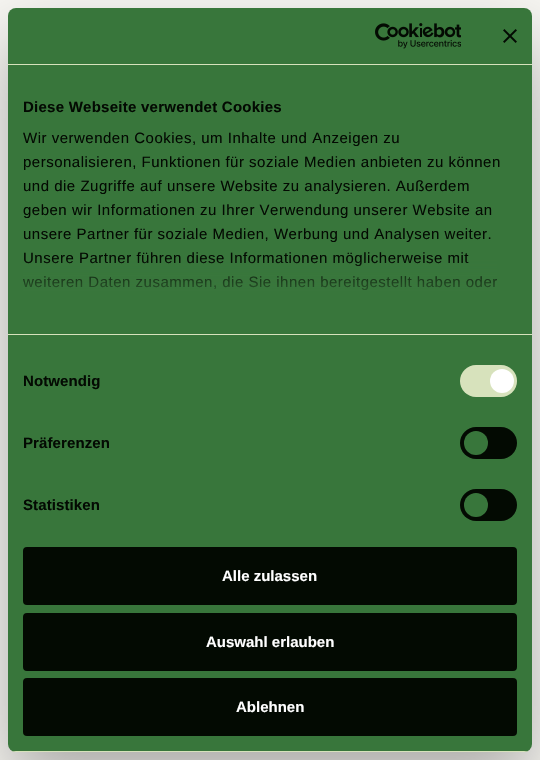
void draw(SkCanvas* canvas) {
    SkPaint paint;
    paint.setAntiAlias(true);
    auto spacedText = [&](const char* s, float x, float y, const SkFont& font, const SkPaint& ink, float letter, float word) {
        std::vector<SkGlyphID> glyphs(font.countText(s, strlen(s), SkTextEncoding::kUTF8));
        std::vector<float> xs(glyphs.size());
        font.textToGlyphs(s, strlen(s), SkTextEncoding::kUTF8, glyphs);
        font.getXPos(glyphs, xs, x);
        float extra = 0;
        for (size_t i = 0; i < glyphs.size(); i++) {
            xs[i] += extra;
            extra += letter + word * (glyphs[i] == font.unicharToGlyph(' '));
        }
        canvas->drawTextBlob(SkTextBlob::MakeFromPosHGlyphs(glyphs, xs, y, font), 0, 0, ink);
    };
    canvas->clear(0xFFF7F6F2);
    paint.setColor(0x4D000000);
    paint.setMaskFilter(SkMaskFilter::MakeBlur(kNormal_SkBlurStyle, 34));
    canvas->drawRoundRect(SkRect::MakeXYWH(8, 40, 524, 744), 8, 8, paint);
    paint.setMaskFilter(nullptr);
    paint.setColor(0xFF38763B);
    canvas->drawRoundRect(SkRect::MakeXYWH(8, 8, 524, 744), 8, 8, paint);
    paint.setColor(0xFFD7E2BC);
    canvas->drawRect(SkRect::MakeXYWH(8, 64, 524, 1), paint);
    canvas->drawImageRect(SkImages::DeferredFromEncodedData(SkData::MakeFromFileName("img1.png")), SkRect::MakeXYWH(375, 23, 86, 26), SkSamplingOptions());
    canvas->drawImageRect(SkImages::DeferredFromEncodedData(SkData::MakeFromFileName("img2.png")), SkRect::MakeXYWH(503, 29, 14, 14), SkSamplingOptions());
    canvas->drawRect(SkRect::MakeXYWH(8, 334, 524, 1), paint);
    SkFont font1(fontMgr->matchFamilyStyle("Liberation Sans", SkFontStyle::Bold()), 15);
    font1.setSubpixel(true);
    paint.setColor(0xFF030A02);
    spacedText("Diese Webseite verwendet Cookies", 23, 112, font1, paint, 0.25f, 0);
    SkFont font2(fontMgr->matchFamilyStyle("Liberation Sans", SkFontStyle::Normal()), 15);
    font2.setSubpixel(true);
    spacedText("Wir verwenden Cookies, um Inhalte und Anzeigen zu", 23, 143, font2, paint, 0.5f, 0);
    spacedText("personalisieren, Funktionen für soziale Medien anbieten zu können", 23, 167, font2, paint, 0.5f, 0);
    spacedText("und die Zugriffe auf unsere Website zu analysieren. Außerdem", 23, 191, font2, paint, 0.5f, 0);
    spacedText("geben wir Informationen zu Ihrer Verwendung unserer Website an", 23, 215, font2, paint, 0.5f, 0);
    spacedText("unsere Partner für soziale Medien, Werbung und Analysen weiter.", 23, 239, font2, paint, 0.5f, 0);
    spacedText("Unsere Partner führen diese Informationen möglicherweise mit", 23, 263, font2, paint, 0.5f, 0);
    spacedText("weiteren Daten zusammen, die Sie ihnen bereitgestellt haben oder", 23, 287, font2, paint, 0.5f, 0);
    {
        const SkColor colors[] = {0xFF38763B, 0xCC38763B, 0x0038763B};
        const float stops[] = {0, 0.5f, 1};
        const SkPoint ends[] = {{264, 334}, {264, 259}};
        paint.setShader(SkGradientShader::MakeLinear(ends, colors, stops, 3, SkTileMode::kClamp));
        paint.setAlpha(255);
    }
    canvas->drawRect(SkRect::MakeXYWH(23, 260, 474, 31), paint);
    paint.setShader(nullptr);
    paint.setColor(0xFF030A02);
    spacedText("Notwendig", 23, 386, font1, paint, 0.1f, 0);
    paint.setColor(0xFFD7E2BC);
    canvas->drawRoundRect(SkRect::MakeXYWH(460, 365, 57, 32), 16, 16, paint);
    paint.setColor(0xFFFFFFFF);
    canvas->drawCircle(502, 381, 12, paint);
    paint.setColor(0xFF030A02);
    spacedText("Präferenzen", 23, 448, font1, paint, 0.1f, 0);
    canvas->drawRoundRect(SkRect::MakeXYWH(460, 427, 57, 32), 16, 16, paint);
    paint.setColor(0xFF38763B);
    canvas->drawCircle(476, 443, 12, paint);
    paint.setColor(0xFF030A02);
    spacedText("Statistiken", 23, 510, font1, paint, 0.1f, 0);
    canvas->drawRoundRect(SkRect::MakeXYWH(460, 489, 57, 32), 16, 16, paint);
    paint.setColor(0xFF38763B);
    canvas->drawCircle(476, 505, 12, paint);
    canvas->save();
    canvas->clipPath(SkPathBuilder().moveTo(16, 8).lineTo(524, 8).cubicTo(528.5f, 8, 532, 11.5f, 532, 16).lineTo(532, 744).cubicTo(532, 748.5f, 528.5f, 752, 524, 752).lineTo(16, 752).cubicTo(11.5f, 752, 8, 748.5f, 8, 744).lineTo(8, 16).cubicTo(8, 11.5f, 11.5f, 8, 16, 8).close().detach(), true);
    paint.setColor(0xFFD7E2BC);
    canvas->drawRect(SkRect::MakeXYWH(8, 751, 524, 1), paint);
    canvas->restore();
    paint.setColor(0xFF030A02);
    canvas->drawRoundRect(SkRect::MakeXYWH(24, 548, 492, 56), 3, 3, paint);
    paint.setStyle(SkPaint::kStroke_Style);
    paint.setStrokeWidth(2);
    canvas->drawRoundRect(SkRect::MakeXYWH(24, 548, 492, 56), 3, 3, paint);
    paint.setStyle(SkPaint::kFill_Style);
    paint.setColor(0xFFFFFFFF);
    canvas->drawString("Alle zulassen", 222, 581, font1, paint);
    paint.setColor(0xFF030A02);
    canvas->drawRoundRect(SkRect::MakeXYWH(24, 614, 492, 56), 3, 3, paint);
    paint.setStyle(SkPaint::kStroke_Style);
    canvas->drawRoundRect(SkRect::MakeXYWH(24, 614, 492, 56), 3, 3, paint);
    paint.setStyle(SkPaint::kFill_Style);
    paint.setColor(0xFFFFFFFF);
    canvas->drawString("Auswahl erlauben", 206, 647, font1, paint);
    paint.setColor(0xFF030A02);
    canvas->drawRoundRect(SkRect::MakeXYWH(24, 679, 492, 56), 3, 3, paint);
    paint.setStyle(SkPaint::kStroke_Style);
    canvas->drawRoundRect(SkRect::MakeXYWH(24, 679, 492, 56), 3, 3, paint);
    paint.setStyle(SkPaint::kFill_Style);
    paint.setColor(0xFFFFFFFF);
    canvas->drawString("Ablehnen", 236, 712, font1, paint);
}
